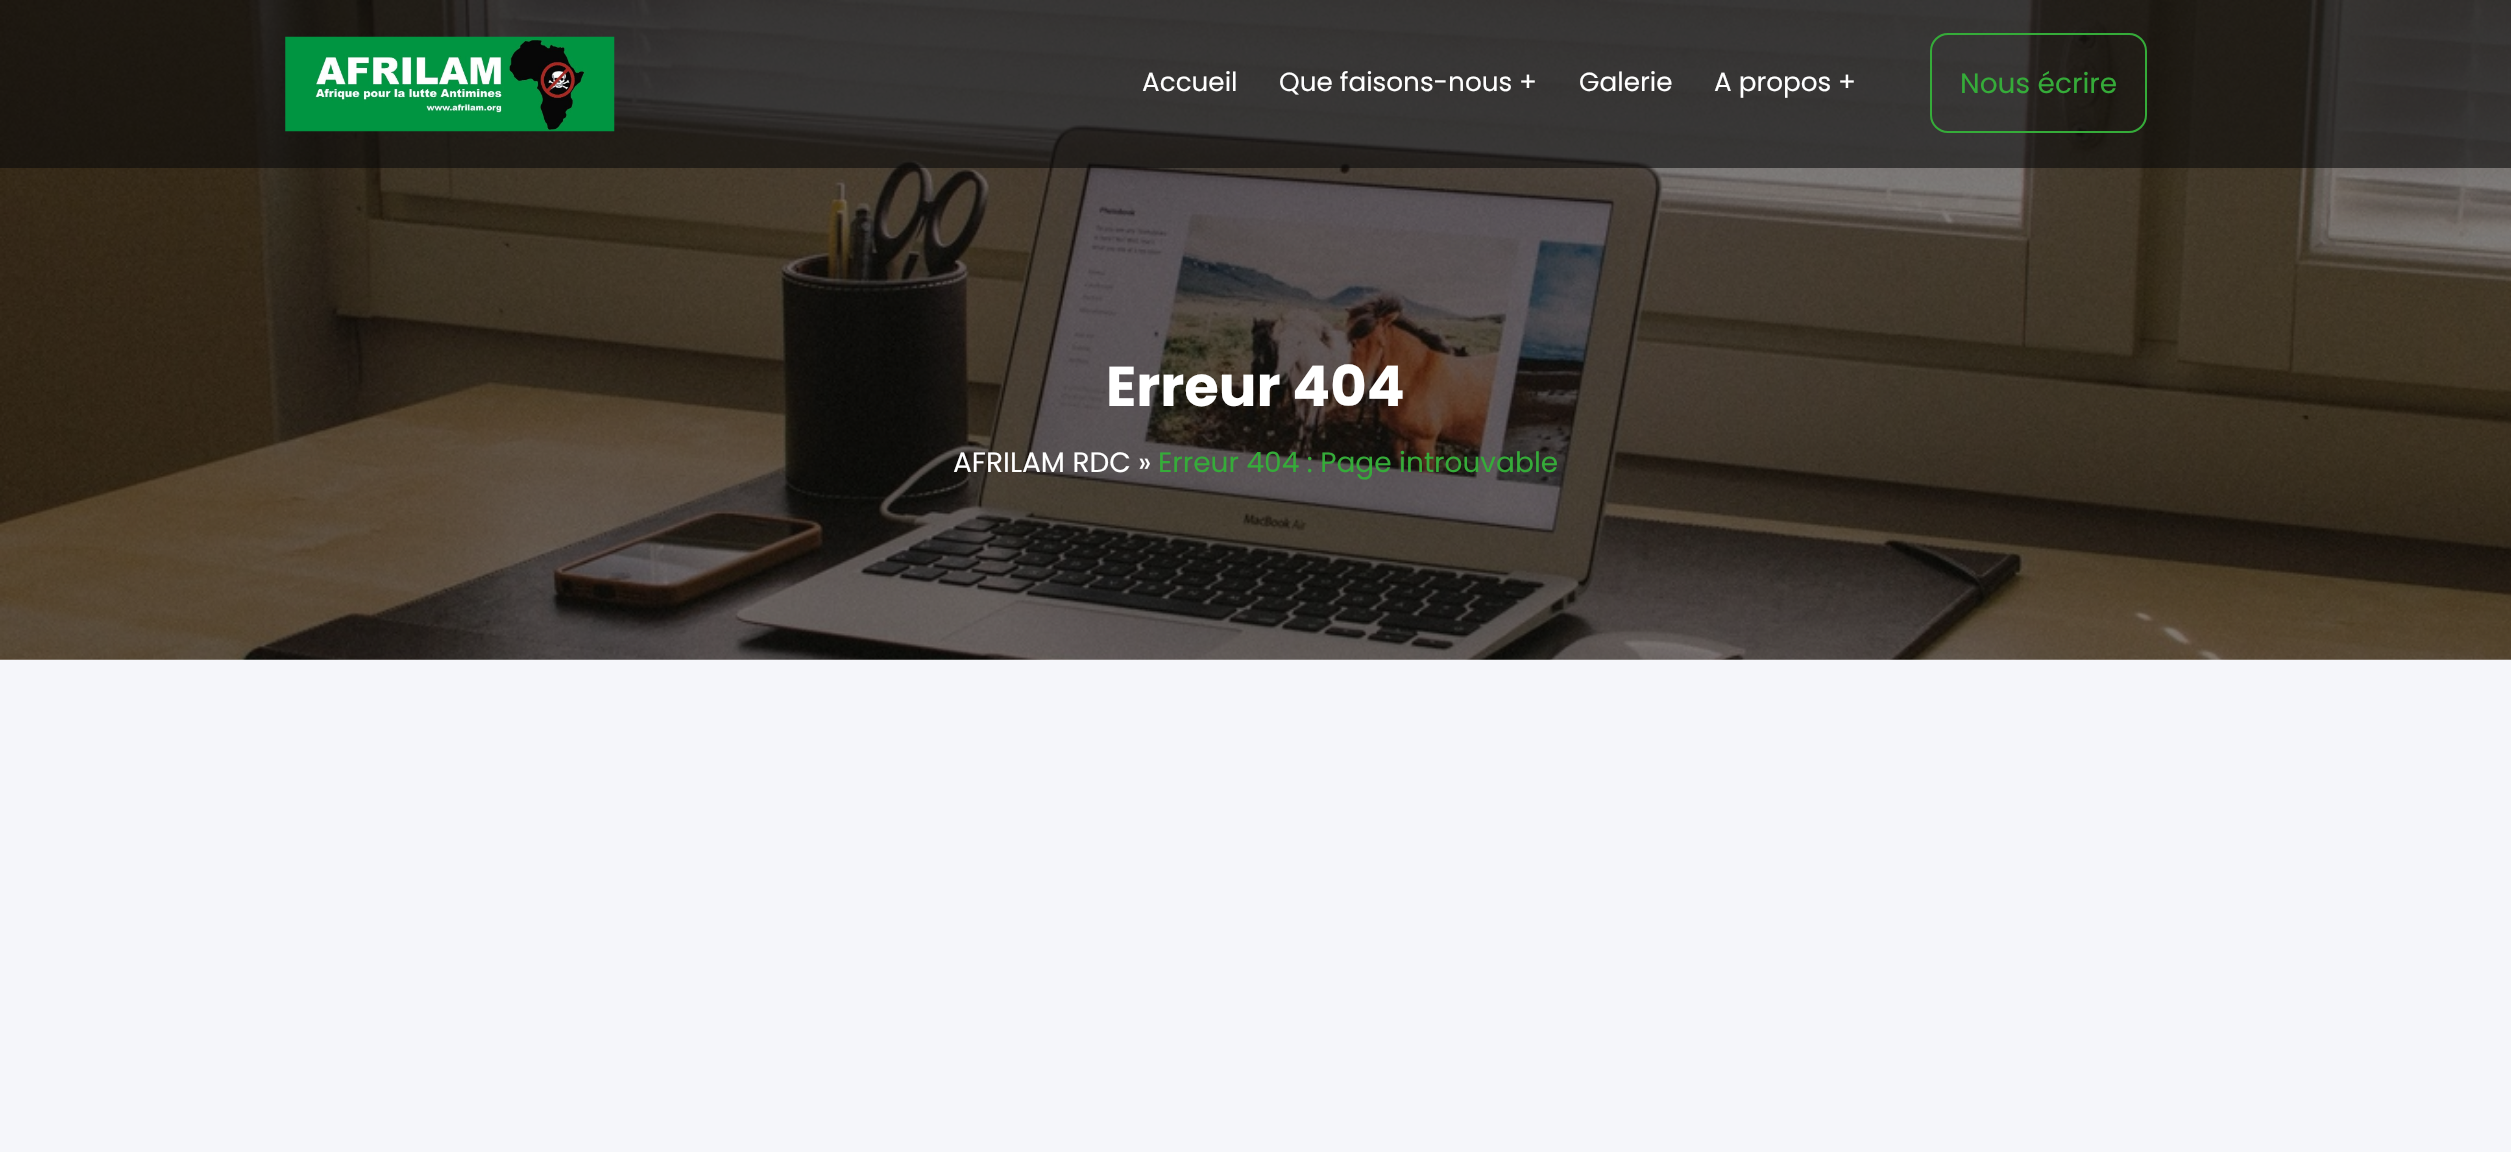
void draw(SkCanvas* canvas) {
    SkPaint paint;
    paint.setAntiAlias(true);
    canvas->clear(0xFFFFFFFF);
    canvas->drawImageRect(SkImages::DeferredFromEncodedData(SkData::MakeFromFileName("img2.png")), SkRect::MakeXYWH(0, 0, 2511, 660), SkSamplingOptions());
    paint.setColor(0x990A0A0A);
    canvas->drawRect(SkRect::MakeXYWH(0, 0, 2511, 168), paint);
    canvas->drawImageRect(SkImages::DeferredFromEncodedData(SkData::MakeFromFileName("img1.png")), SkRect::MakeXYWH(285, 36, 330, 96), SkSamplingOptions());
    SkFont font1(fontMgr->matchFamilyStyle("Poppins", SkFontStyle::Normal()), 26.25f);
    font1.setSubpixel(true);
    paint.setColor(0xFFFFFFFF);
    canvas->drawString("Accueil", 1142, 91, font1, paint);
    canvas->drawString("Que faisons-nous", 1279, 91, font1, paint);
    canvas->drawString("+", 1519, 91, font1, paint);
    canvas->drawString("Galerie", 1579, 91, font1, paint);
    canvas->drawString("A propos", 1714, 91, font1, paint);
    canvas->drawString("+", 1838, 91, font1, paint);
    paint.setStyle(SkPaint::kStroke_Style);
    paint.setStrokeWidth(2);
    paint.setColor(0xFF35AC39);
    canvas->drawRoundRect(SkRect::MakeXYWH(1931, 34, 215, 98), 17, 17, paint);
    SkFont font2(fontMgr->matchFamilyStyle("Poppins", SkFontStyle::Normal()), 28);
    font2.setSubpixel(true);
    paint.setStyle(SkPaint::kFill_Style);
    canvas->drawString("Nous écrire", 1960, 93, font2, paint);
    SkFont font3(fontMgr->matchFamilyStyle("Poppins", SkFontStyle::Bold()), 56);
    font3.setSubpixel(true);
    paint.setColor(0xFFFFFFFF);
    canvas->drawString("Erreur 404", 1106, 406, font3, paint);
    canvas->drawString("AFRILAM RDC »", 953, 472, font2, paint);
    paint.setColor(0xFF35AC39);
    canvas->drawString("Erreur 404 : Page introuvable", 1158, 472, font2, paint);
    paint.setColor(0xFFF5F6FA);
    canvas->drawRect(SkRect::MakeXYWH(0, 660, 2511, 492), paint);
}
